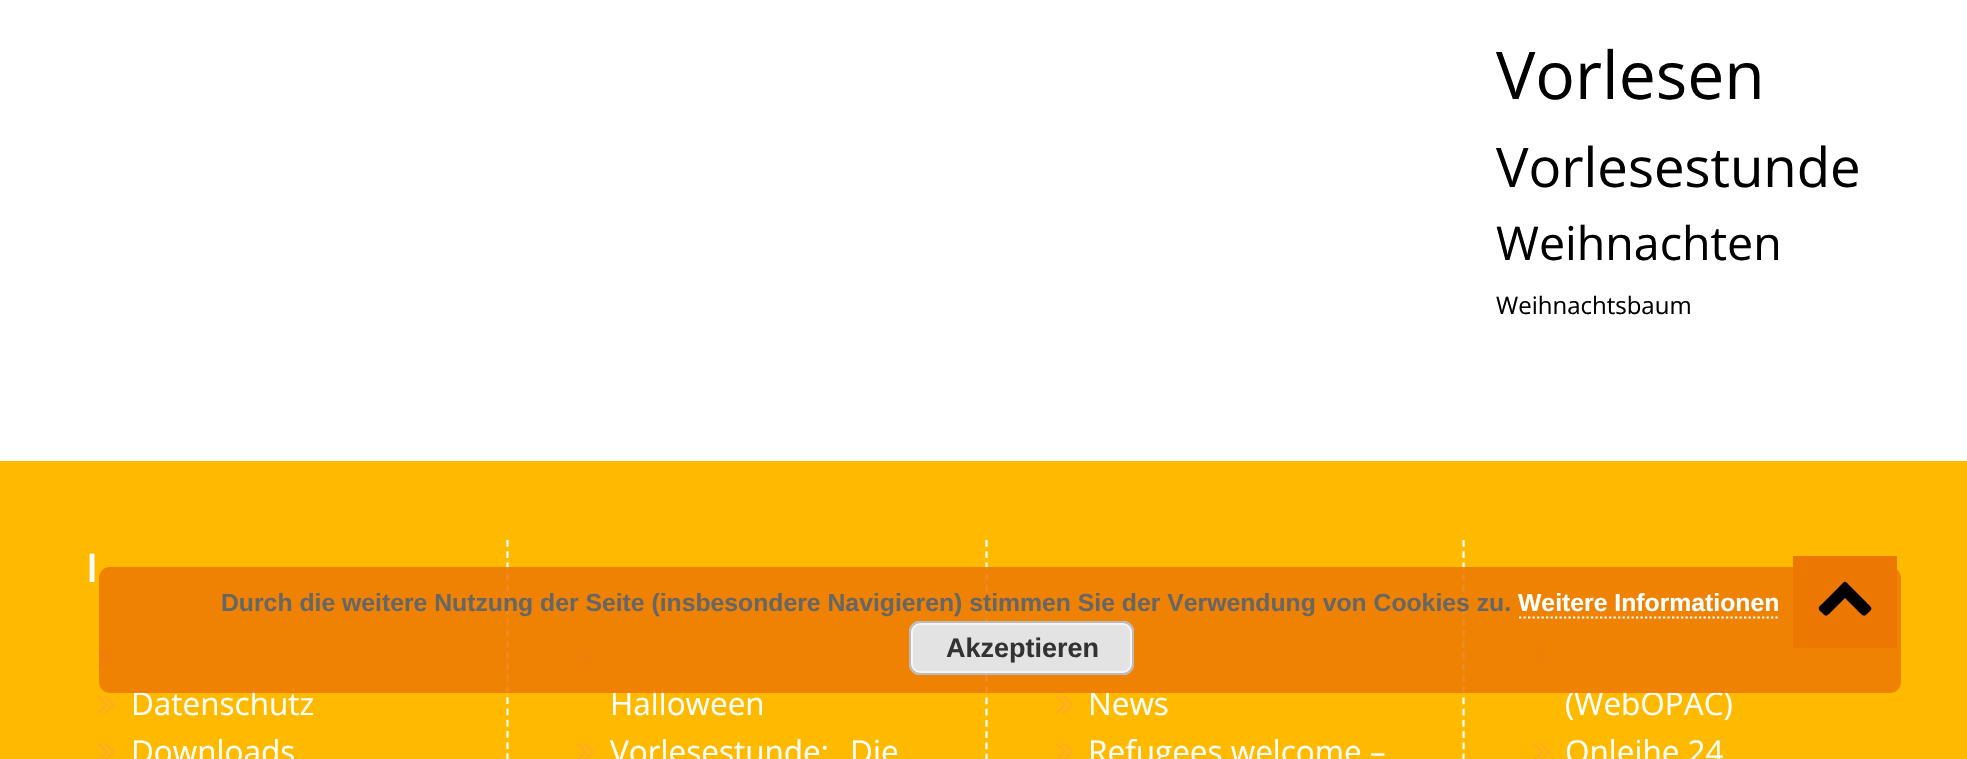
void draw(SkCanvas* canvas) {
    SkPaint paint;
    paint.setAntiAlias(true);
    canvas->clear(0xFFFFFFFF);
    SkFont font1(fontMgr->matchFamilyStyle("Open Sans", SkFontStyle::Normal()), 66);
    font1.setSubpixel(true);
    paint.setColor(0xFF000000);
    canvas->drawString("Vorlesen", 1496, 99, font1, paint);
    SkFont font2(fontMgr->matchFamilyStyle("Open Sans", SkFontStyle::Normal()), 54.5f);
    font2.setSubpixel(true);
    canvas->drawString("Vorlesestunde", 1496, 187, font2, paint);
    SkFont font3(fontMgr->matchFamilyStyle("Open Sans", SkFontStyle::Normal()), 46.5f);
    font3.setSubpixel(true);
    canvas->drawString("Weihnachten", 1496, 260, font3, paint);
    SkFont font4(fontMgr->matchFamilyStyle("Open Sans", SkFontStyle::Normal()), 24);
    font4.setSubpixel(true);
    canvas->drawString("Weihnachtsbaum", 1496, 314, font4, paint);
    paint.setColor(0xFFFFBA00);
    canvas->drawRect(SkRect::MakeXYWH(0, 461, 1967, 298), paint);
    SkFont font5(fontMgr->matchFamilyStyle("Merriweather Sans", SkFontStyle::Normal()), 38);
    font5.setSubpixel(true);
    paint.setColor(0xFFFFFFFF);
    canvas->drawString("I", 86, 582, font5, paint);
    canvas->drawImageRect(SkImages::DeferredFromEncodedData(SkData::MakeFromFileName("img1.png")), SkRect::MakeXYWH(97, 648, 18, 19), SkSamplingOptions());
    canvas->drawImageRect(SkImages::DeferredFromEncodedData(SkData::MakeFromFileName("img2.png")), SkRect::MakeXYWH(97, 695, 18, 19), SkSamplingOptions());
    SkFont font6(fontMgr->matchFamilyStyle("Open Sans", SkFontStyle::Normal()), 31.5f);
    font6.setSubpixel(true);
    canvas->drawString("Datenschutz", 131, 715, font6, paint);
    canvas->drawImageRect(SkImages::DeferredFromEncodedData(SkData::MakeFromFileName("img3.png")), SkRect::MakeXYWH(97, 742, 18, 17), SkSamplingOptions());
    canvas->drawString("Downloads", 131, 763, font6, paint);
    paint.setStyle(SkPaint::kStroke_Style);
    paint.setStrokeWidth(2.2f);
    paint.setPathEffect(SkDashPathEffect::Make({{6.75f, 4.48f}}, 0));
    canvas->drawPath(SkPathBuilder().moveTo(507.5f, 540).lineTo(507.5f, 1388).detach(), paint);
    paint.setPathEffect(nullptr);
    canvas->drawImageRect(SkImages::DeferredFromEncodedData(SkData::MakeFromFileName("img4.png")), SkRect::MakeXYWH(576, 648, 19, 19), SkSamplingOptions());
    paint.setStyle(SkPaint::kFill_Style);
    canvas->drawString("Halloween", 610, 715, font6, paint);
    canvas->drawImageRect(SkImages::DeferredFromEncodedData(SkData::MakeFromFileName("img5.png")), SkRect::MakeXYWH(576, 742, 19, 17), SkSamplingOptions());
    canvas->drawString("Vorlesestunde: „Die", 610, 763, font6, paint);
    paint.setStyle(SkPaint::kStroke_Style);
    paint.setPathEffect(SkDashPathEffect::Make({{6.75f, 4.5f}}, 0));
    canvas->drawPath(SkPathBuilder().moveTo(986.5f, 540).lineTo(986.5f, 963).detach(), paint);
    paint.setPathEffect(nullptr);
    canvas->drawImageRect(SkImages::DeferredFromEncodedData(SkData::MakeFromFileName("img6.png")), SkRect::MakeXYWH(1055, 695, 19, 19), SkSamplingOptions());
    paint.setStyle(SkPaint::kFill_Style);
    canvas->drawString("News", 1088, 715, font6, paint);
    canvas->drawImageRect(SkImages::DeferredFromEncodedData(SkData::MakeFromFileName("img7.png")), SkRect::MakeXYWH(1055, 742, 19, 17), SkSamplingOptions());
    canvas->drawString("Refugees welcome –", 1088, 763, font6, paint);
    paint.setStyle(SkPaint::kStroke_Style);
    paint.setPathEffect(SkDashPathEffect::Make({{6.75f, 4.5f}}, 0));
    canvas->drawPath(SkPathBuilder().moveTo(1463.5f, 540).lineTo(1463.5f, 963).detach(), paint);
    paint.setPathEffect(nullptr);
    canvas->drawImageRect(SkImages::DeferredFromEncodedData(SkData::MakeFromFileName("img8.png")), SkRect::MakeXYWH(1532, 648, 19, 19), SkSamplingOptions());
    paint.setStyle(SkPaint::kFill_Style);
    canvas->drawString("(WebOPAC)", 1565, 715, font6, paint);
    canvas->drawImageRect(SkImages::DeferredFromEncodedData(SkData::MakeFromFileName("img7.png")), SkRect::MakeXYWH(1532, 742, 19, 17), SkSamplingOptions());
    canvas->drawString("Onleihe 24", 1565, 763, font6, paint);
    paint.setColor(0xD9EC7703);
    canvas->drawRoundRect(SkRect::MakeXYWH(99, 567, 1802, 126), 11, 11, paint);
    SkFont font7(fontMgr->matchFamilyStyle("Liberation Sans", SkFontStyle::Bold()), 24.75f);
    font7.setSubpixel(true);
    paint.setColor(0xFF666666);
    canvas->drawString("Durch die weitere Nutzung der Seite (insbesondere Navigieren) stimmen Sie der Verwendung von Cookies zu.", 221, 611, font7, paint);
    paint.setColor(0xFFFFFFFF);
    canvas->drawString("Weitere Informationen", 1518, 611, font7, paint);
    paint.setStyle(SkPaint::kStroke_Style);
    paint.setPathEffect(SkDashPathEffect::Make({{2.25f, 2.25f}}, 0));
    canvas->drawPath(SkPathBuilder().moveTo(1519, 617.5f).lineTo(1780, 617.5f).detach(), paint);
    paint.setPathEffect(nullptr);
    paint.setStyle(SkPaint::kFill_Style);
    paint.setColor(0xFFE3E3E3);
    canvas->drawRoundRect(SkRect::MakeXYWH(909, 621, 225, 54), 11, 11, paint);
    paint.setStyle(SkPaint::kStroke_Style);
    paint.setStrokeWidth(2);
    paint.setColor(0xFFF6F6F6);
    canvas->drawRoundRect(SkRect::MakeXYWH(912, 624, 219, 48), 8, 8, paint);
    paint.setColor(0xFFBBBBBB);
    canvas->drawRoundRect(SkRect::MakeXYWH(910, 622, 223, 52), 10, 10, paint);
    SkFont font8(fontMgr->matchFamilyStyle("Liberation Sans", SkFontStyle::Bold()), 27);
    font8.setSubpixel(true);
    paint.setStyle(SkPaint::kFill_Style);
    paint.setColor(0xFF333333);
    canvas->drawString("Akzeptieren", 946, 657, font8, paint);
    paint.setColor(0xFFEC7703);
    canvas->drawRect(SkRect::MakeXYWH(1793, 556, 104, 92), paint);
    paint.setColor(0xFF000000);
    canvas->drawPath(SkPathBuilder().moveTo(1871, 610).cubicTo(1865, 616, 1865, 618, 1859, 612).lineTo(1845, 598).lineTo(1831, 612).cubicTo(1825, 618, 1826, 616, 1820, 611).cubicTo(1817, 607, 1820, 606, 1823, 603).lineTo(1839, 587).cubicTo(1846, 580, 1844, 580, 1851, 587).lineTo(1867, 603).cubicTo(1867, 604, 1873, 607, 1871, 610).close().detach(), paint);
}
